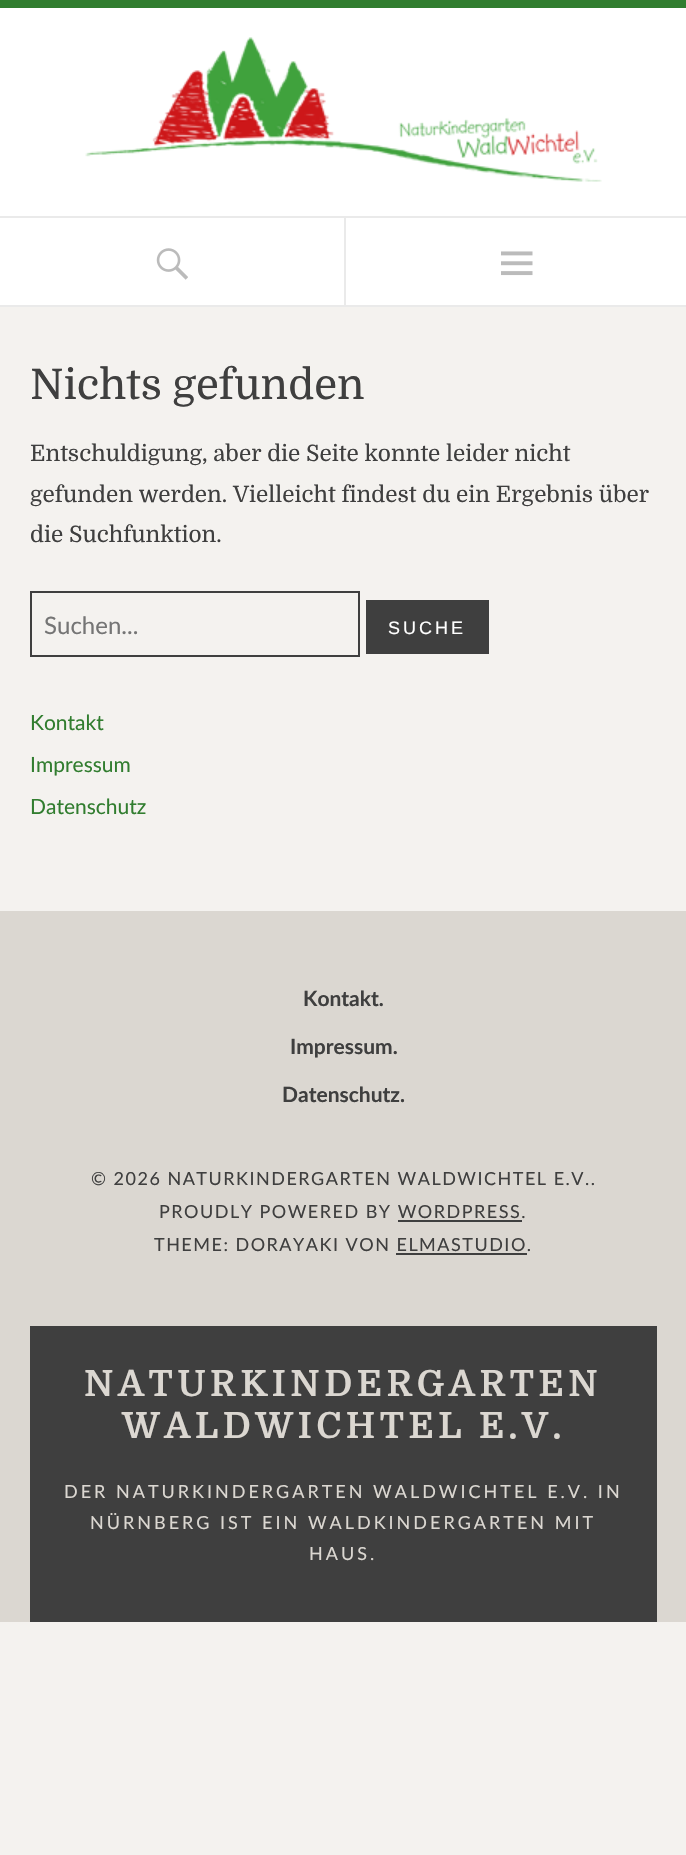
void draw(SkCanvas* canvas) {
    SkPaint paint;
    paint.setAntiAlias(true);
    auto spacedText = [&](const char* s, float x, float y, const SkFont& font, const SkPaint& ink, float letter, float word) {
        std::vector<SkGlyphID> glyphs(font.countText(s, strlen(s), SkTextEncoding::kUTF8));
        std::vector<float> xs(glyphs.size());
        font.textToGlyphs(s, strlen(s), SkTextEncoding::kUTF8, glyphs);
        font.getXPos(glyphs, xs, x);
        float extra = 0;
        for (size_t i = 0; i < glyphs.size(); i++) {
            xs[i] += extra;
            extra += letter + word * (glyphs[i] == font.unicharToGlyph(' '));
        }
        canvas->drawTextBlob(SkTextBlob::MakeFromPosHGlyphs(glyphs, xs, y, font), 0, 0, ink);
    };
    canvas->clear(0xFFF4F2EF);
    paint.setColor(0xFFFFFFFF);
    canvas->drawRect(SkRect::MakeXYWH(0, 8, 686, 297), paint);
    paint.setColor(0xFF317D2F);
    canvas->drawRect(SkRect::MakeXYWH(0, 0, 686, 8), paint);
    canvas->drawImageRect(SkImages::DeferredFromEncodedData(SkData::MakeFromFileName("img1.png")), SkRect::MakeXYWH(85, 37, 517, 145), SkSamplingOptions());
    paint.setColor(0xFFEAEAEA);
    canvas->drawRect(SkRect::MakeXYWH(0, 216, 686, 2), paint);
    canvas->drawRect(SkRect::MakeXYWH(0, 305, 686, 2), paint);
    canvas->drawImageRect(SkImages::DeferredFromEncodedData(SkData::MakeFromFileName("img2.png")), SkRect::MakeXYWH(156, 248, 32, 32), SkSamplingOptions());
    canvas->drawRect(SkRect::MakeXYWH(344, 216, 2, 90), paint);
    canvas->drawImageRect(SkImages::DeferredFromEncodedData(SkData::MakeFromFileName("img3.png")), SkRect::MakeXYWH(501, 251, 32, 25), SkSamplingOptions());
    SkFont font1(fontMgr->matchFamilyStyle("Domine", SkFontStyle::Normal()), 42);
    font1.setSubpixel(true);
    paint.setColor(0xFF3F3F3F);
    canvas->drawString("Nichts gefunden", 30, 399, font1, paint);
    SkFont font2(fontMgr->matchFamilyStyle("Domine", SkFontStyle::Normal()), 22.5f);
    font2.setSubpixel(true);
    canvas->drawString("Entschuldigung, aber die Seite konnte leider nicht", 30, 461, font2, paint);
    canvas->drawString("gefunden werden. Vielleicht findest du ein Ergebnis über", 30, 502, font2, paint);
    canvas->drawString("die Suchfunktion.", 30, 542, font2, paint);
    paint.setStyle(SkPaint::kStroke_Style);
    paint.setStrokeWidth(2);
    canvas->drawRect(SkRect::MakeXYWH(31, 592, 328, 64), paint);
    SkFont font3(fontMgr->matchFamilyStyle("Lato", SkFontStyle::Normal()), 24);
    font3.setSubpixel(true);
    paint.setStyle(SkPaint::kFill_Style);
    paint.setColor(0xFF757575);
    canvas->drawString("Suchen...", 44, 634, font3, paint);
    paint.setColor(0xFF3F3F3F);
    canvas->drawRect(SkRect::MakeXYWH(366, 600, 123, 54), paint);
    SkFont font4(fontMgr->matchFamilyStyle("Liberation Sans", SkFontStyle::Normal()), 18);
    font4.setSubpixel(true);
    paint.setColor(0xFFFFFFFF);
    spacedText("SUCHE", 388, 634, font4, paint, 3, 0);
    SkFont font5(fontMgr->matchFamilyStyle("Lato", SkFontStyle::Normal()), 21);
    font5.setSubpixel(true);
    paint.setColor(0xFF317D2F);
    canvas->drawString("Kontakt", 30, 730, font5, paint);
    canvas->drawString("Impressum", 30, 772, font5, paint);
    canvas->drawString("Datenschutz", 30, 814, font5, paint);
    paint.setColor(0xFFDBD7D1);
    canvas->drawRect(SkRect::MakeXYWH(0, 911, 686, 711), paint);
    SkFont font6(fontMgr->matchFamilyStyle("Lato", SkFontStyle::Bold()), 21);
    font6.setSubpixel(true);
    paint.setColor(0xFF3F3F3F);
    canvas->drawString("Kontakt.", 303, 1006, font6, paint);
    canvas->drawString("Impressum.", 290, 1054, font6, paint);
    canvas->drawString("Datenschutz.", 282, 1102, font6, paint);
    SkFont font7(fontMgr->matchFamilyStyle("Lato", SkFontStyle::Normal()), 18);
    font7.setSubpixel(true);
    spacedText("© 2026 NATURKINDERGARTEN WALDWICHTEL E.V..", 91, 1185, font7, paint, 1.5f, 0);
    spacedText("PROUDLY POWERED BY WORDPRESS.", 159, 1218, font7, paint, 1.5f, 0);
    canvas->drawRect(SkRect::MakeXYWH(398, 1220, 124, 2), paint);
    spacedText("THEME: DORAYAKI VON ELMASTUDIO.", 154, 1251, font7, paint, 1.5f, 0);
    canvas->drawRect(SkRect::MakeXYWH(396, 1253, 131, 2), paint);
    canvas->drawRect(SkRect::MakeXYWH(30, 1326, 627, 296), paint);
    SkFont font8(fontMgr->matchFamilyStyle("Domine", SkFontStyle::Bold()), 36);
    font8.setSubpixel(true);
    paint.setColor(0xFFDBD7D1);
    spacedText("NATURKINDERGARTEN", 84, 1396, font8, paint, 4.5f, 0);
    spacedText("WALDWICHTEL E.V.", 122, 1438, font8, paint, 4.5f, 0);
    spacedText("DER NATURKINDERGARTEN WALDWICHTEL E.V. IN", 64, 1498, font7, paint, 3, 0);
    spacedText("NÜRNBERG IST EIN WALDKINDERGARTEN MIT", 90, 1529, font7, paint, 3, 0);
    spacedText("HAUS.", 309, 1560, font7, paint, 3, 0);
}
